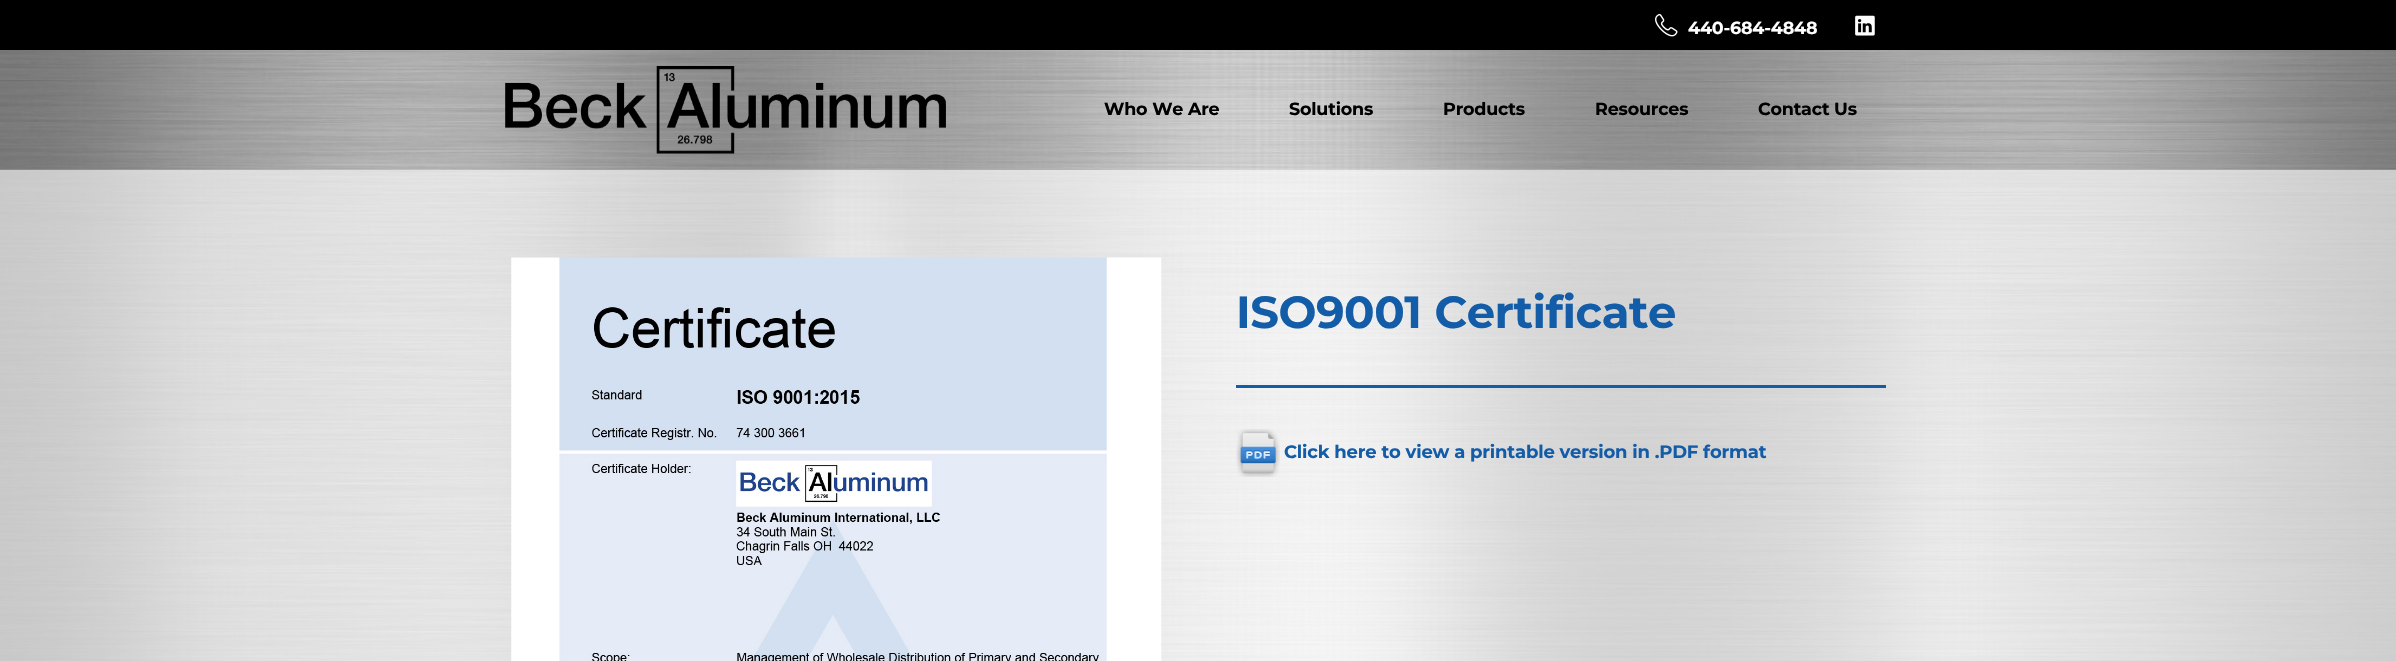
void draw(SkCanvas* canvas) {
    SkPaint paint;
    paint.setAntiAlias(true);
    auto spacedText = [&](const char* s, float x, float y, const SkFont& font, const SkPaint& ink, float letter, float word) {
        std::vector<SkGlyphID> glyphs(font.countText(s, strlen(s), SkTextEncoding::kUTF8));
        std::vector<float> xs(glyphs.size());
        font.textToGlyphs(s, strlen(s), SkTextEncoding::kUTF8, glyphs);
        font.getXPos(glyphs, xs, x);
        float extra = 0;
        for (size_t i = 0; i < glyphs.size(); i++) {
            xs[i] += extra;
            extra += letter + word * (glyphs[i] == font.unicharToGlyph(' '));
        }
        canvas->drawTextBlob(SkTextBlob::MakeFromPosHGlyphs(glyphs, xs, y, font), 0, 0, ink);
    };
    canvas->clear(0xFFFFFFFF);
    paint.setColor(0xFF000000);
    canvas->drawRect(SkRect::MakeXYWH(0, 0, 2396, 50), paint);
    canvas->drawImageRect(SkImages::DeferredFromEncodedData(SkData::MakeFromFileName("img1.png")), SkRect::MakeXYWH(1655, 13, 23, 24), SkSamplingOptions());
    SkFont font1(fontMgr->matchFamilyStyle("Montserrat", SkFontStyle::Bold()), 17.5f);
    font1.setSubpixel(true);
    paint.setColor(0xFFFFFFFF);
    spacedText("440-684-4848", 1688, 34, font1, paint, -0.18f, 0);
    canvas->drawImageRect(SkImages::DeferredFromEncodedData(SkData::MakeFromFileName("img2.png")), SkRect::MakeXYWH(1855, 15, 20, 21), SkSamplingOptions());
    canvas->drawImageRect(SkImages::DeferredFromEncodedData(SkData::MakeFromFileName("img3.png")), SkRect::MakeXYWH(0, 50, 2396, 120), SkSamplingOptions());
    canvas->drawImageRect(SkImages::DeferredFromEncodedData(SkData::MakeFromFileName("img4.png")), SkRect::MakeXYWH(505, 66, 441, 88), SkSamplingOptions());
    paint.setColor(0xFF000000);
    spacedText("Who We Are", 1104, 115, font1, paint, -0.18f, 0);
    spacedText("Solutions", 1289, 115, font1, paint, -0.18f, 0);
    spacedText("Products", 1443, 115, font1, paint, -0.18f, 0);
    spacedText("Resources", 1595, 115, font1, paint, -0.18f, 0);
    spacedText("Contact Us", 1758, 115, font1, paint, -0.18f, 0);
    canvas->drawImageRect(SkImages::DeferredFromEncodedData(SkData::MakeFromFileName("img5.png")), SkRect::MakeXYWH(0, 170, 2396, 491), SkSamplingOptions());
    canvas->drawImageRect(SkImages::DeferredFromEncodedData(SkData::MakeFromFileName("img6.png")), SkRect::MakeXYWH(511, 257, 651, 404), SkSamplingOptions());
    SkFont font2(fontMgr->matchFamilyStyle("Montserrat", SkFontStyle::Bold()), 45);
    font2.setSubpixel(true);
    paint.setColor(0xFF135CA8);
    spacedText("ISO9001 Certificate", 1236, 328, font2, paint, -0.5f, 1);
    canvas->drawRect(SkRect::MakeXYWH(1236, 385, 650, 3), paint);
    canvas->drawImageRect(SkImages::DeferredFromEncodedData(SkData::MakeFromFileName("img7.png")), SkRect::MakeXYWH(1236, 429, 44, 48), SkSamplingOptions());
    SkFont font3(fontMgr->matchFamilyStyle("Montserrat", SkFontStyle::Bold()), 18);
    font3.setSubpixel(true);
    spacedText("Click here to view a printable version in .PDF format", 1284, 458, font3, paint, -0.18f, 0);
}
